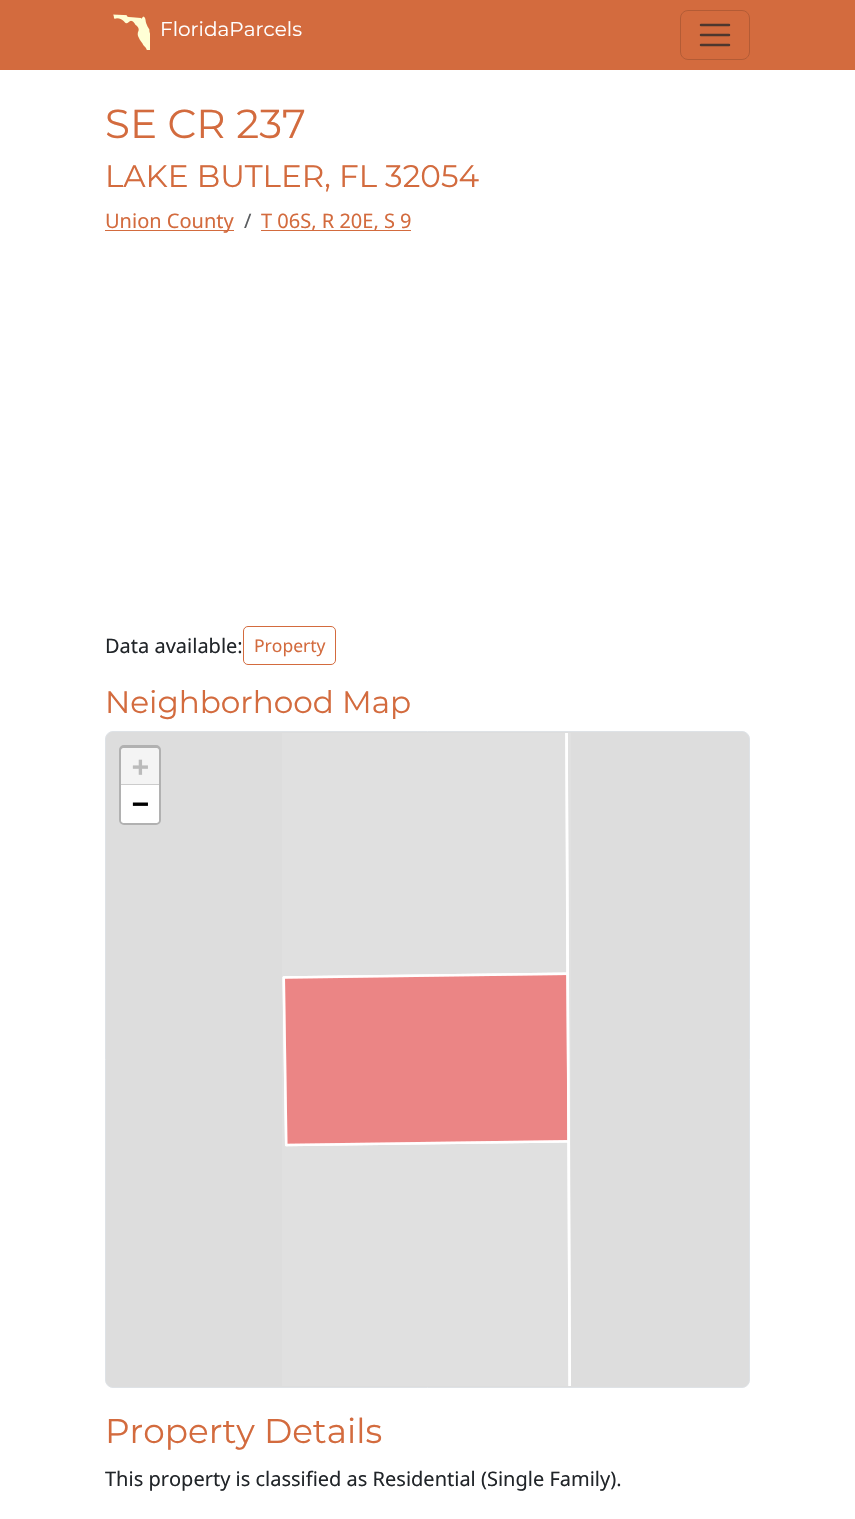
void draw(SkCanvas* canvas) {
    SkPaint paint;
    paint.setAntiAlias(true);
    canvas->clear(0xFFFFFFFF);
    paint.setColor(0xFFD36B3E);
    canvas->drawRect(SkRect::MakeXYWH(0, 0, 855, 70), paint);
    canvas->drawImageRect(SkImages::DeferredFromEncodedData(SkData::MakeFromFileName("img1.png")), SkRect::MakeXYWH(113, 14, 37, 36), SkSamplingOptions());
    SkFont font1(fontMgr->matchFamilyStyle("Montserrat", SkFontStyle::Normal()), 20);
    font1.setSubpixel(true);
    paint.setColor(0xFFFFFFFF);
    canvas->drawString("FloridaParcels", 160, 36, font1, paint);
    paint.setStyle(SkPaint::kStroke_Style);
    paint.setStrokeWidth(1);
    paint.setColor(0xFFB35B35);
    canvas->drawRoundRect(SkRect::MakeXYWH(680.5f, 10.5f, 69, 49), 7.5f, 7.5f, paint);
    paint.setStrokeWidth(2.5f);
    paint.setStrokeCap(SkPaint::kRound_Cap);
    paint.setColor(0xFF4E372E);
    canvas->drawPath(SkPathBuilder().moveTo(701, 25).lineTo(729, 25).moveTo(701, 35).lineTo(729, 35).moveTo(701, 45).lineTo(729, 45).detach(), paint);
    SkFont font2(fontMgr->matchFamilyStyle("Montserrat", SkFontStyle::Normal()), 40.5f);
    font2.setSubpixel(true);
    paint.setStyle(SkPaint::kFill_Style);
    paint.setColor(0xFFD36B3E);
    canvas->drawString("SE CR 237", 105, 138, font2, paint);
    SkFont font3(fontMgr->matchFamilyStyle("Montserrat", SkFontStyle::Normal()), 31.1f);
    font3.setSubpixel(true);
    canvas->drawString("LAKE BUTLER, FL 32054", 105, 187, font3, paint);
    canvas->drawRect(SkRect::MakeXYWH(105, 230, 129, 1), paint);
    SkFont font4(fontMgr->matchFamilyStyle("Noto Sans", SkFontStyle::Normal()), 20);
    font4.setSubpixel(true);
    canvas->drawString("Union County", 105, 228, font4, paint);
    paint.setColor(0xFF595C5F);
    canvas->drawString("/", 244, 228, font4, paint);
    paint.setColor(0xFFD36B3E);
    canvas->drawRect(SkRect::MakeXYWH(261, 230, 150, 1), paint);
    canvas->drawString("T 06S, R 20E, S 9", 261, 228, font4, paint);
    paint.setColor(0xFF212529);
    canvas->drawString("Data available:", 105, 653, font4, paint);
    paint.setStyle(SkPaint::kStroke_Style);
    paint.setStrokeWidth(1);
    paint.setStrokeCap(SkPaint::kButt_Cap);
    paint.setColor(0xFFD36B3E);
    canvas->drawRoundRect(SkRect::MakeXYWH(243.5f, 626.5f, 92, 38), 4.5f, 4.5f, paint);
    SkFont font5(fontMgr->matchFamilyStyle("Noto Sans", SkFontStyle::Normal()), 17.5f);
    font5.setSubpixel(true);
    paint.setStyle(SkPaint::kFill_Style);
    canvas->drawString("Property", 254, 652, font5, paint);
    canvas->drawString("Neighborhood Map", 105, 713, font3, paint);
    paint.setColor(0xFFDDDDDD);
    canvas->drawRoundRect(SkRect::MakeXYWH(105.5f, 731.5f, 644, 656), 7.5f, 7.5f, paint);
    paint.setStyle(SkPaint::kStroke_Style);
    paint.setColor(0xFFDEE2E6);
    canvas->drawRoundRect(SkRect::MakeXYWH(105.5f, 731.5f, 644, 656), 7.5f, 7.5f, paint);
    paint.setStrokeWidth(3);
    paint.setColor(0xFFB1B1B1);
    canvas->drawRoundRect(SkRect::MakeXYWH(120.5f, 746.5f, 39, 77), 3.5f, 3.5f, paint);
    paint.setStyle(SkPaint::kFill_Style);
    paint.setColor(0xFFF4F4F4);
    canvas->drawPath(SkPathBuilder().moveTo(123.5f, 748).lineTo(156.5f, 748).cubicTo(158, 748, 159, 749, 159, 750.5f).lineTo(159, 785).lineTo(121, 785).lineTo(121, 750.5f).cubicTo(121, 749, 122, 748, 123.5f, 748).close().detach(), paint);
    paint.setColor(0xFFCCCCCC);
    canvas->drawRect(SkRect::MakeXYWH(121, 784, 38, 1), paint);
    SkFont font6(fontMgr->matchFamilyStyle("DejaVu Sans Mono", SkFontStyle::Bold()), 28);
    font6.setSubpixel(true);
    paint.setColor(0xFFBBBBBB);
    canvas->drawString("+", 132, 776, font6, paint);
    paint.setColor(0xFFFFFFFF);
    canvas->drawPath(SkPathBuilder().moveTo(121, 785).lineTo(159, 785).lineTo(159, 820.5f).cubicTo(159, 822, 158, 823, 156.5f, 823).lineTo(123.5f, 823).cubicTo(122, 823, 121, 822, 121, 820.5f).close().detach(), paint);
    paint.setColor(0xFF000000);
    canvas->drawString("−", 132, 813, font6, paint);
    canvas->drawImageRect(SkImages::DeferredFromEncodedData(SkData::MakeFromFileName("img2.png")), SkRect::MakeXYWH(282, 733, 289, 653), SkSamplingOptions());
    SkFont font7(fontMgr->matchFamilyStyle("Montserrat", SkFontStyle::Normal()), 34.25f);
    font7.setSubpixel(true);
    paint.setColor(0xFFD36B3E);
    canvas->drawString("Property Details", 105, 1443, font7, paint);
    paint.setColor(0xFF212529);
    canvas->drawString("This property is classified as Residential (Single Family).", 105, 1486, font4, paint);
}
